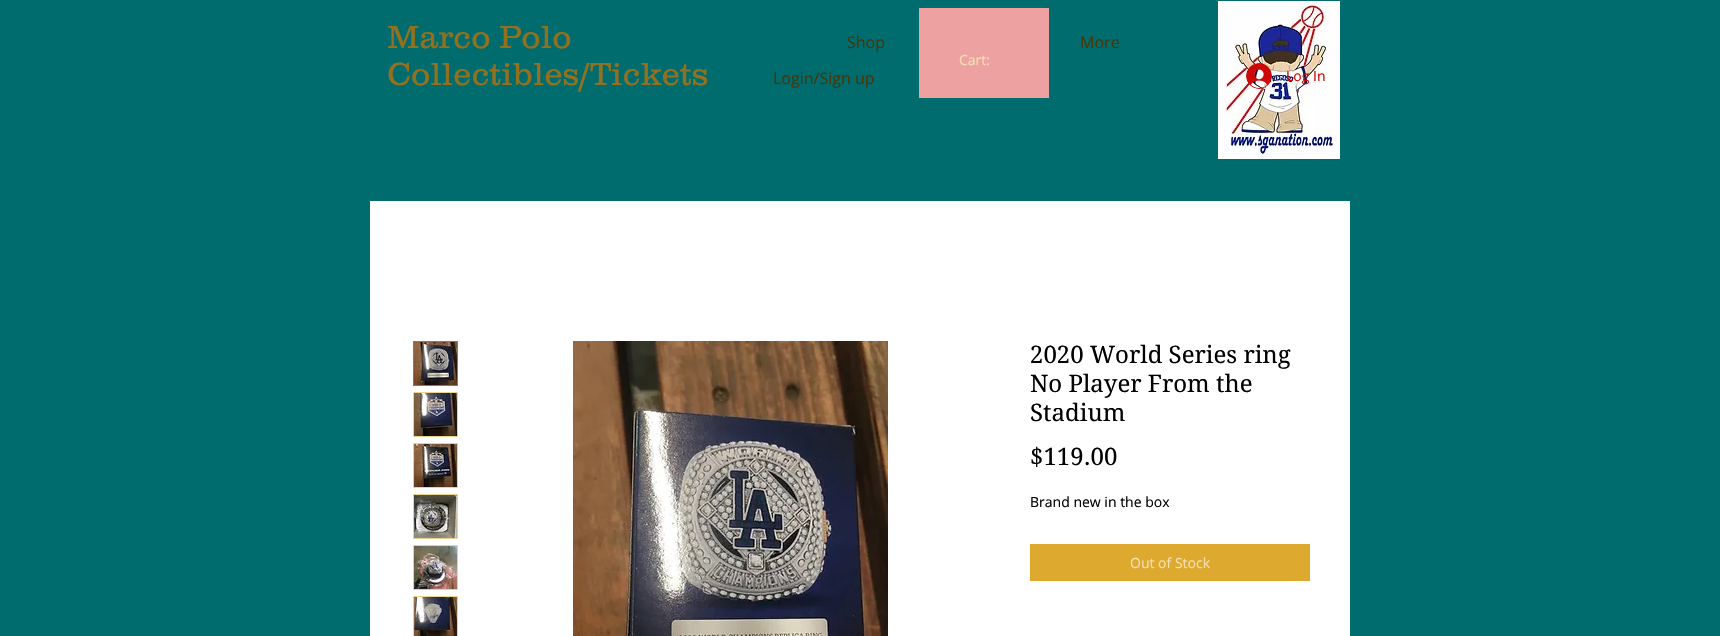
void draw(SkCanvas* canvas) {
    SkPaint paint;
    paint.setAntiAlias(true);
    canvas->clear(0xFF006C6D);
    SkFont font1(fontMgr->matchFamilyStyle("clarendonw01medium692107", SkFontStyle(300, SkFontStyle::kNormal_Width, SkFontStyle::kUpright_Slant)), 33);
    font1.setSubpixel(true);
    paint.setColor(0xFF93701F);
    canvas->drawString("Marco Polo", 387, 48, font1, paint);
    canvas->drawString("Collectibles/Tickets", 387, 85, font1, paint);
    SkFont font2(fontMgr->matchFamilyStyle("Open Sans", SkFontStyle::Normal()), 16);
    font2.setSubpixel(true);
    paint.setColor(0xFF493508);
    canvas->drawString("Shop", 847, 48, font2, paint);
    canvas->drawString("More", 1080, 48, font2, paint);
    canvas->drawImageRect(SkImages::DeferredFromEncodedData(SkData::MakeFromFileName("img1.png")), SkRect::MakeXYWH(1218, 1, 122, 158), SkSamplingOptions());
    paint.setColor(0xFFEDA1A1);
    canvas->drawRect(SkRect::MakeXYWH(919, 8, 130, 90), paint);
    SkFont font3(fontMgr->matchFamilyStyle("Open Sans", SkFontStyle::Normal()), 14);
    font3.setSubpixel(true);
    paint.setColor(0xFFF3E0B3);
    canvas->drawString("Cart:", 959, 65, font3, paint);
    paint.setColor(0xFF493508);
    canvas->drawString("Login/Sign up", 773, 84, font2, paint);
    canvas->drawImageRect(SkImages::DeferredFromEncodedData(SkData::MakeFromFileName("img2.png")), SkRect::MakeXYWH(1246, 63, 26, 26), SkSamplingOptions());
    paint.setColor(0xFFCC0808);
    canvas->drawString("Log In", 1286, 81, font3, paint);
    paint.setColor(0xFFFFFFFF);
    canvas->drawRect(SkRect::MakeXYWH(370, 201, 980, 435), paint);
    paint.setStyle(SkPaint::kStroke_Style);
    paint.setStrokeWidth(1);
    paint.setColor(0xFFEF5310);
    canvas->drawRect(SkRect::MakeXYWH(413.5f, 341.5f, 44, 44), paint);
    canvas->drawImageRect(SkImages::DeferredFromEncodedData(SkData::MakeFromFileName("img3.png")), SkRect::MakeXYWH(414, 342, 43, 43), SkSamplingOptions());
    paint.setStyle(SkPaint::kFill_Style);
    paint.setColor(0xFFEAD38D);
    canvas->drawRect(SkRect::MakeXYWH(413, 392, 45, 45), paint);
    canvas->drawImageRect(SkImages::DeferredFromEncodedData(SkData::MakeFromFileName("img4.png")), SkRect::MakeXYWH(414, 393, 43, 43), SkSamplingOptions());
    canvas->drawRect(SkRect::MakeXYWH(413, 443, 45, 45), paint);
    canvas->drawImageRect(SkImages::DeferredFromEncodedData(SkData::MakeFromFileName("img5.png")), SkRect::MakeXYWH(414, 444, 43, 43), SkSamplingOptions());
    canvas->drawRect(SkRect::MakeXYWH(413, 494, 45, 45), paint);
    canvas->drawImageRect(SkImages::DeferredFromEncodedData(SkData::MakeFromFileName("img6.png")), SkRect::MakeXYWH(414, 495, 43, 43), SkSamplingOptions());
    canvas->drawRect(SkRect::MakeXYWH(413, 545, 45, 45), paint);
    canvas->drawImageRect(SkImages::DeferredFromEncodedData(SkData::MakeFromFileName("img7.png")), SkRect::MakeXYWH(414, 546, 43, 43), SkSamplingOptions());
    canvas->drawRect(SkRect::MakeXYWH(413, 596, 45, 40), paint);
    canvas->drawImageRect(SkImages::DeferredFromEncodedData(SkData::MakeFromFileName("img8.png")), SkRect::MakeXYWH(414, 597, 43, 39), SkSamplingOptions());
    canvas->drawImageRect(SkImages::DeferredFromEncodedData(SkData::MakeFromFileName("img9.png")), SkRect::MakeXYWH(573, 341, 315, 295), SkSamplingOptions());
    SkFont font4(fontMgr->matchFamilyStyle("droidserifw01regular", SkFontStyle::Normal()), 24);
    font4.setSubpixel(true);
    paint.setColor(0xFF000000);
    canvas->drawString("2020 World Series ring", 1030, 363, font4, paint);
    canvas->drawString("No Player From the", 1030, 392, font4, paint);
    canvas->drawString("Stadium", 1030, 421, font4, paint);
    canvas->drawString("$119.00", 1030, 465, font4, paint);
    canvas->drawString("Brand new in the box", 1030, 507, font3, paint);
    paint.setColor(0xFFDDA92E);
    canvas->drawRect(SkRect::MakeXYWH(1030, 544, 280, 37), paint);
    paint.setColor(0xFFF3E0B3);
    canvas->drawString("Out of Stock", 1130, 568, font3, paint);
}
